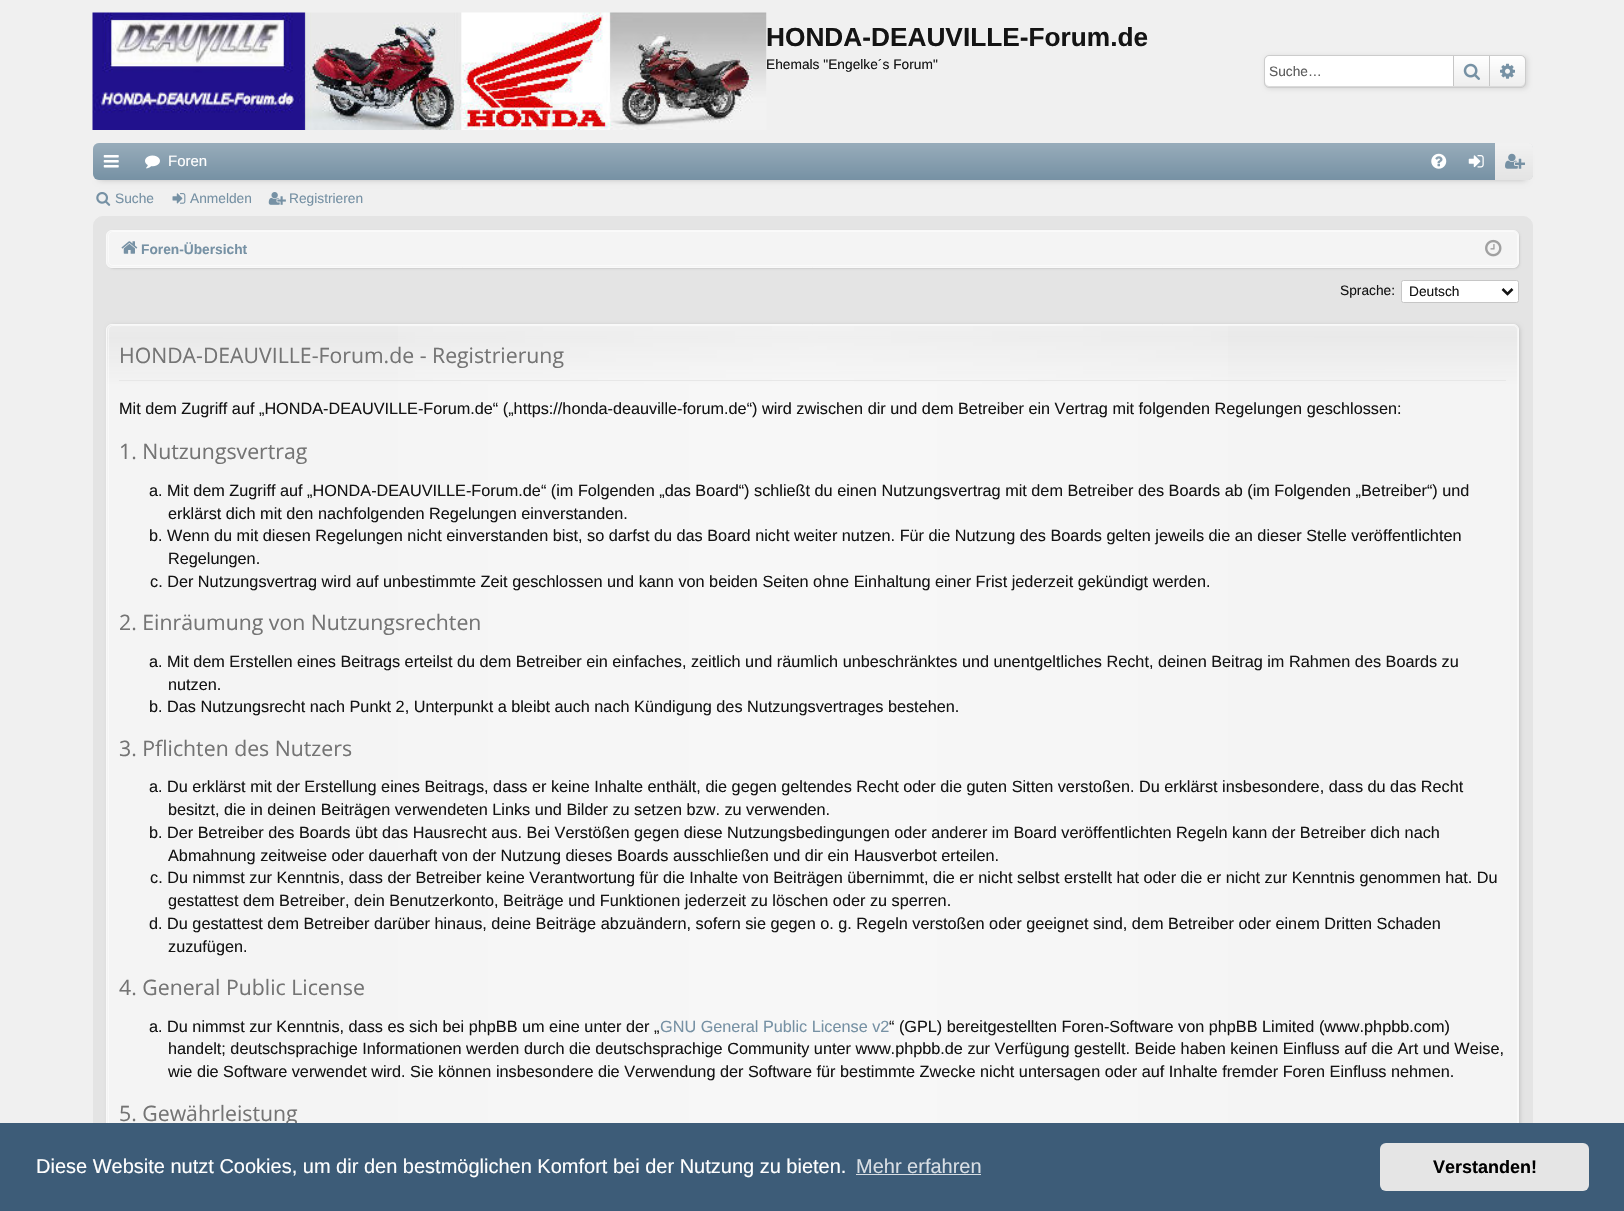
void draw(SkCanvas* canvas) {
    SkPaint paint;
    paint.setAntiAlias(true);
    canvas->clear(0xFFF0F0F0);
    canvas->drawImageRect(SkImages::DeferredFromEncodedData(SkData::MakeFromFileName("img1.png")), SkRect::MakeXYWH(92, 12, 675, 118), SkSamplingOptions());
    SkFont font1(fontMgr->matchFamilyStyle("Liberation Sans", SkFontStyle::Bold()), 26.25f);
    font1.setSubpixel(true);
    paint.setColor(0xFF141414);
    canvas->drawString("HONDA-DEAUVILLE-Forum.de", 766, 46, font1, paint);
    SkFont font2(fontMgr->matchFamilyStyle("Liberation Sans", SkFontStyle::Normal()), 13.75f);
    font2.setSubpixel(true);
    canvas->drawString("Ehemals \"Engelke´s Forum\"", 766, 69, font2, paint);
    paint.setColor(0x1A000000);
    paint.setMaskFilter(SkMaskFilter::MakeBlur(kNormal_SkBlurStyle, 2));
    canvas->drawRoundRect(SkRect::MakeXYWH(1265, 56, 263, 33), 5, 5, paint);
    paint.setMaskFilter(nullptr);
    paint.setStyle(SkPaint::kStroke_Style);
    paint.setStrokeWidth(1);
    paint.setColor(0xFFCCCCCC);
    canvas->drawRoundRect(SkRect::MakeXYWH(1264.5f, 55.5f, 261, 32), 4.5f, 4.5f, paint);
    paint.setStyle(SkPaint::kFill_Style);
    paint.setColor(0xFFFFFFFF);
    canvas->drawPath(SkPathBuilder().moveTo(1270, 56).lineTo(1453, 56).lineTo(1453, 86).lineTo(1270, 86).cubicTo(1267, 86, 1265, 84, 1265, 81).lineTo(1265, 61).cubicTo(1265, 58, 1267, 56, 1270, 56).close().detach(), paint);
    paint.setColor(0xFF5B5B5B);
    canvas->drawString("Suche…", 1269, 76, font2, paint);
    {
        const SkColor colors[] = {0xFFFFFFFF, 0xFFEEEEEE};
        const float stops[] = {0, 1};
        const SkPoint ends[] = {{1471, 56}, {1471, 86}};
        paint.setShader(SkGradientShader::MakeLinear(ends, colors, stops, 2, SkTileMode::kClamp));
        paint.setAlpha(255);
    }
    canvas->drawRect(SkRect::MakeXYWH(1454, 56, 35, 30), paint);
    paint.setShader(nullptr);
    paint.setColor(0xFFC6C6C6);
    canvas->drawRect(SkRect::MakeXYWH(1489, 56, 1, 30), paint);
    canvas->drawRect(SkRect::MakeXYWH(1453, 56, 1, 30), paint);
    canvas->drawImageRect(SkImages::DeferredFromEncodedData(SkData::MakeFromFileName("img2.png")), SkRect::MakeXYWH(1463, 63, 17, 17), SkSamplingOptions());
    {
        const SkColor colors[] = {0xFFFFFFFF, 0xFFEEEEEE};
        const float stops[] = {0, 1};
        const SkPoint ends[] = {{1508, 56}, {1508, 86}};
        paint.setShader(SkGradientShader::MakeLinear(ends, colors, stops, 2, SkTileMode::kClamp));
        paint.setAlpha(255);
    }
    canvas->drawPath(SkPathBuilder().moveTo(1490, 56).lineTo(1520, 56).cubicTo(1523, 56, 1525, 58, 1525, 61).lineTo(1525, 81).cubicTo(1525, 84, 1523, 86, 1520, 86).lineTo(1490, 86).close().detach(), paint);
    canvas->drawImageRect(SkImages::DeferredFromEncodedData(SkData::MakeFromFileName("img3.png")), SkRect::MakeXYWH(1500, 63, 15, 16), SkSamplingOptions());
    paint.setShader(nullptr);
    paint.setColor(0x33000000);
    paint.setMaskFilter(SkMaskFilter::MakeBlur(kNormal_SkBlurStyle, 3));
    canvas->drawRect(SkRect::MakeXYWH(99, 155, 1427, 25), paint);
    paint.setMaskFilter(nullptr);
    paint.setColor(0xFF7691A4);
    canvas->drawRoundRect(SkRect::MakeXYWH(93, 143, 1440, 37), 6, 6, paint);
    {
        const SkColor colors[] = {0x40FFFFFF, 0x00FFFFFF};
        const float stops[] = {0, 1};
        const SkPoint ends[] = {{813, 142}, {813, 180}};
        paint.setShader(SkGradientShader::MakeLinear(ends, colors, stops, 2, SkTileMode::kClamp));
        paint.setAlpha(255);
    }
    canvas->drawRoundRect(SkRect::MakeXYWH(93, 143, 1440, 37), 6, 6, paint);
    canvas->drawImageRect(SkImages::DeferredFromEncodedData(SkData::MakeFromFileName("img4.png")), SkRect::MakeXYWH(103, 155, 16, 13), SkSamplingOptions());
    canvas->drawImageRect(SkImages::DeferredFromEncodedData(SkData::MakeFromFileName("img5.png")), SkRect::MakeXYWH(145, 155, 15, 14), SkSamplingOptions());
    SkFont font3(fontMgr->matchFamilyStyle("Liberation Sans", SkFontStyle::Normal()), 15);
    font3.setSubpixel(true);
    paint.setShader(nullptr);
    paint.setColor(0xFFFFFFFF);
    canvas->drawString("Foren", 168, 166, font3, paint);
    canvas->drawImageRect(SkImages::DeferredFromEncodedData(SkData::MakeFromFileName("img6.png")), SkRect::MakeXYWH(1431, 153, 16, 16), SkSamplingOptions());
    canvas->drawImageRect(SkImages::DeferredFromEncodedData(SkData::MakeFromFileName("img7.png")), SkRect::MakeXYWH(1468, 155, 16, 13), SkSamplingOptions());
    paint.setColor(0xFFE4E4E4);
    canvas->drawPath(SkPathBuilder().moveTo(1495, 143).lineTo(1528, 143).cubicTo(1531, 143, 1533, 145, 1533, 148).lineTo(1533, 175).cubicTo(1533, 178, 1531, 180, 1528, 180).lineTo(1495, 180).close().detach(), paint);
    {
        const SkColor colors[] = {0x80FFFFFF, 0x00FFFFFF};
        const float stops[] = {0, 1};
        const SkPoint ends[] = {{1514, 143}, {1514, 180}};
        paint.setShader(SkGradientShader::MakeLinear(ends, colors, stops, 2, SkTileMode::kClamp));
        paint.setAlpha(255);
    }
    canvas->drawPath(SkPathBuilder().moveTo(1495, 143).lineTo(1528, 143).cubicTo(1531, 143, 1533, 145, 1533, 148).lineTo(1533, 175).cubicTo(1533, 178, 1531, 180, 1528, 180).lineTo(1495, 180).close().detach(), paint);
    canvas->drawImageRect(SkImages::DeferredFromEncodedData(SkData::MakeFromFileName("img8.png")), SkRect::MakeXYWH(1505, 153, 20, 16), SkSamplingOptions());
    canvas->drawImageRect(SkImages::DeferredFromEncodedData(SkData::MakeFromFileName("img9.png")), SkRect::MakeXYWH(96, 192, 15, 14), SkSamplingOptions());
    paint.setShader(nullptr);
    paint.setColor(0xFF7691A4);
    canvas->drawString("Suche", 115, 203, font2, paint);
    canvas->drawImageRect(SkImages::DeferredFromEncodedData(SkData::MakeFromFileName("img10.png")), SkRect::MakeXYWH(172, 193, 14, 11), SkSamplingOptions());
    canvas->drawString("Anmelden", 190, 203, font2, paint);
    canvas->drawImageRect(SkImages::DeferredFromEncodedData(SkData::MakeFromFileName("img11.png")), SkRect::MakeXYWH(268, 192, 18, 13), SkSamplingOptions());
    canvas->drawString("Registrieren", 289, 203, font2, paint);
    paint.setColor(0xFFE4E4E4);
    canvas->drawRoundRect(SkRect::MakeXYWH(93.5f, 216.5f, 1439, 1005), 9.5f, 9.5f, paint);
    paint.setStyle(SkPaint::kStroke_Style);
    canvas->drawRoundRect(SkRect::MakeXYWH(93.5f, 216.5f, 1439, 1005), 9.5f, 9.5f, paint);
    paint.setStyle(SkPaint::kFill_Style);
    paint.setColor(0x1A000000);
    paint.setMaskFilter(SkMaskFilter::MakeBlur(kNormal_SkBlurStyle, 1));
    canvas->drawRoundRect(SkRect::MakeXYWH(108, 231, 1412, 38), 6, 6, paint);
    paint.setMaskFilter(nullptr);
    paint.setColor(0xFFF4F4F4);
    canvas->drawRoundRect(SkRect::MakeXYWH(106, 230, 1413, 38), 6, 6, paint);
    paint.setStyle(SkPaint::kStroke_Style);
    paint.setColor(0xFFFAFAFA);
    canvas->drawRoundRect(SkRect::MakeXYWH(108.5f, 231.5f, 1409, 34), 4.5f, 4.5f, paint);
    paint.setColor(0xFFF9F9F9);
    canvas->drawRoundRect(SkRect::MakeXYWH(106.5f, 230.5f, 1412, 37), 5.5f, 5.5f, paint);
    canvas->drawImageRect(SkImages::DeferredFromEncodedData(SkData::MakeFromFileName("img12.png")), SkRect::MakeXYWH(121, 241, 17, 13), SkSamplingOptions());
    SkFont font4(fontMgr->matchFamilyStyle("Liberation Sans", SkFontStyle::Bold()), 13.75f);
    font4.setSubpixel(true);
    paint.setStyle(SkPaint::kFill_Style);
    paint.setColor(0xFF7691A4);
    canvas->drawString("Foren-Übersicht", 141, 254, font4, paint);
    canvas->drawImageRect(SkImages::DeferredFromEncodedData(SkData::MakeFromFileName("img13.png")), SkRect::MakeXYWH(1485, 239, 17, 18), SkSamplingOptions());
    paint.setColor(0xFF141414);
    canvas->drawString("Sprache:", 1340, 295, font2, paint);
    paint.setColor(0xFFFFFFFF);
    canvas->drawRoundRect(SkRect::MakeXYWH(1401.5f, 280.5f, 117, 22), 2, 2, paint);
    paint.setStyle(SkPaint::kStroke_Style);
    paint.setColor(0xFFC6C6C6);
    canvas->drawRoundRect(SkRect::MakeXYWH(1401.5f, 280.5f, 117, 22), 2, 2, paint);
    paint.setStrokeWidth(2.5f);
    paint.setColor(0xFF141414);
    canvas->drawPath(SkPathBuilder().moveTo(1502.5f, 289).lineTo(1507.5f, 294).lineTo(1512.5f, 289).detach(), paint);
    paint.setStyle(SkPaint::kFill_Style);
    canvas->drawString("Deutsch", 1409, 296, font2, paint);
    paint.setColor(0x26000000);
    paint.setMaskFilter(SkMaskFilter::MakeBlur(kNormal_SkBlurStyle, 2));
    canvas->drawRoundRect(SkRect::MakeXYWH(108, 325, 1412, 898), 6, 6, paint);
    paint.setMaskFilter(nullptr);
    paint.setColor(0xFFF4F4F4);
    canvas->drawRoundRect(SkRect::MakeXYWH(106, 324, 1413, 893), 6, 6, paint);
    canvas->save();
    canvas->clipPath(SkPathBuilder().moveTo(112, 324).lineTo(1513, 324).cubicTo(1516.5f, 324, 1519, 326.5f, 1519, 330).lineTo(1519, 1572).cubicTo(1519, 1575.5f, 1516.5f, 1578, 1513, 1578).lineTo(112, 1578).cubicTo(108.5f, 1578, 106, 1575.5f, 106, 1572).lineTo(106, 330).cubicTo(106, 326.5f, 108.5f, 324, 112, 324).close().detach(), true);
    {
        const SkColor colors[] = {0x33CCCCCC, 0x40CCCCCC, 0x00CCCCCC};
        const float stops[] = {0, 0.01f, 0.05f};
        const SkPoint ends[] = {{812, 325}, {813, 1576}};
        paint.setShader(SkGradientShader::MakeLinear(ends, colors, stops, 3, SkTileMode::kClamp));
        paint.setAlpha(255);
    }
    canvas->drawRect(SkRect::MakeXYWH(106, 325, 1413, 59), paint);
    canvas->restore();
    {
        const SkColor colors[] = {0x00FFFFFF, 0x4DFFFFFF, 0x00FFFFFF};
        const float stops[] = {0, 0.5f, 1};
        const SkPoint ends[] = {{108, 951}, {1518, 951}};
        paint.setShader(SkGradientShader::MakeLinear(ends, colors, stops, 3, SkTileMode::kClamp));
        paint.setAlpha(255);
    }
    canvas->drawRect(SkRect::MakeXYWH(398, 325, 830, 798), paint);
    paint.setStyle(SkPaint::kStroke_Style);
    paint.setStrokeWidth(1);
    paint.setShader(nullptr);
    paint.setColor(0x80FFFFFF);
    canvas->drawRoundRect(SkRect::MakeXYWH(108.5f, 325.5f, 1409, 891), 4.5f, 4.5f, paint);
    paint.setColor(0xFFF9F9F9);
    canvas->drawRoundRect(SkRect::MakeXYWH(106.5f, 324.5f, 1412, 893), 5.5f, 5.5f, paint);
    paint.setStyle(SkPaint::kFill_Style);
    paint.setColor(0xFFE7E7E7);
    canvas->drawRect(SkRect::MakeXYWH(119, 380, 1387, 1), paint);
    SkFont font5(fontMgr->matchFamilyStyle("Open Sans", SkFontStyle::Normal()), 21.25f);
    font5.setSubpixel(true);
    paint.setColor(0xFF747474);
    canvas->drawString("HONDA-DEAUVILLE-Forum.de - Registrierung", 119, 363, font5, paint);
    SkFont font6(fontMgr->matchFamilyStyle("Liberation Sans", SkFontStyle::Normal()), 16.25f);
    font6.setSubpixel(true);
    paint.setColor(0xFF141414);
    canvas->drawString("Mit dem Zugriff auf „HONDA-DEAUVILLE-Forum.de“ („https://honda-deauville-forum.de“) wird zwischen dir und dem Betreiber ein Vertrag mit folgenden Regelungen geschlossen:", 119, 414, font6, paint);
    paint.setColor(0xFF747474);
    canvas->drawString("1. Nutzungsvertrag", 119, 459, font5, paint);
    paint.setColor(0xFF141414);
    canvas->drawString("a. Mit dem Zugriff auf „HONDA-DEAUVILLE-Forum.de“ (im Folgenden „das Board“) schließt du einen Nutzungsvertrag mit dem Betreiber des Boards ab (im Folgenden „Betreiber“) und", 149, 496, font6, paint);
    canvas->drawString("erklärst dich mit den nachfolgenden Regelungen einverstanden.", 168, 519, font6, paint);
    canvas->drawString("b. Wenn du mit diesen Regelungen nicht einverstanden bist, so darfst du das Board nicht weiter nutzen. Für die Nutzung des Boards gelten jeweils die an dieser Stelle veröffentlichten", 149, 541, font6, paint);
    canvas->drawString("Regelungen.", 168, 564, font6, paint);
    canvas->drawString("c. Der Nutzungsvertrag wird auf unbestimmte Zeit geschlossen und kann von beiden Seiten ohne Einhaltung einer Frist jederzeit gekündigt werden.", 150, 587, font6, paint);
    paint.setColor(0xFF747474);
    canvas->drawString("2. Einräumung von Nutzungsrechten", 119, 630, font5, paint);
    paint.setColor(0xFF141414);
    canvas->drawString("a. Mit dem Erstellen eines Beitrags erteilst du dem Betreiber ein einfaches, zeitlich und räumlich unbeschränktes und unentgeltliches Recht, deinen Beitrag im Rahmen des Boards zu", 149, 667, font6, paint);
    canvas->drawString("nutzen.", 168, 690, font6, paint);
    canvas->drawString("b. Das Nutzungsrecht nach Punkt 2, Unterpunkt a bleibt auch nach Kündigung des Nutzungsvertrages bestehen.", 149, 712, font6, paint);
    paint.setColor(0xFF747474);
    canvas->drawString("3. Pflichten des Nutzers", 119, 756, font5, paint);
    paint.setColor(0xFF141414);
    canvas->drawString("a. Du erklärst mit der Erstellung eines Beitrags, dass er keine Inhalte enthält, die gegen geltendes Recht oder die guten Sitten verstoßen. Du erklärst insbesondere, dass du das Recht", 149, 792, font6, paint);
    canvas->drawString("besitzt, die in deinen Beiträgen verwendeten Links und Bilder zu setzen bzw. zu verwenden.", 168, 815, font6, paint);
    canvas->drawString("b. Der Betreiber des Boards übt das Hausrecht aus. Bei Verstößen gegen diese Nutzungsbedingungen oder anderer im Board veröffentlichten Regeln kann der Betreiber dich nach", 149, 838, font6, paint);
    canvas->drawString("Abmahnung zeitweise oder dauerhaft von der Nutzung dieses Boards ausschließen und dir ein Hausverbot erteilen.", 168, 861, font6, paint);
    canvas->drawString("c. Du nimmst zur Kenntnis, dass der Betreiber keine Verantwortung für die Inhalte von Beiträgen übernimmt, die er nicht selbst erstellt hat oder die er nicht zur Kenntnis genommen hat. Du", 150, 883, font6, paint);
    canvas->drawString("gestattest dem Betreiber, dein Benutzerkonto, Beiträge und Funktionen jederzeit zu löschen oder zu sperren.", 168, 906, font6, paint);
    canvas->drawString("d. Du gestattest dem Betreiber darüber hinaus, deine Beiträge abzuändern, sofern sie gegen o. g. Regeln verstoßen oder geeignet sind, dem Betreiber oder einem Dritten Schaden", 149, 929, font6, paint);
    canvas->drawString("zuzufügen.", 168, 952, font6, paint);
    paint.setColor(0xFF747474);
    canvas->drawString("4. General Public License", 119, 995, font5, paint);
    paint.setColor(0xFF141414);
    canvas->drawString("a. Du nimmst zur Kenntnis, dass es sich bei phpBB um eine unter der „", 149, 1032, font6, paint);
    paint.setColor(0xFF7691A4);
    canvas->drawString("GNU General Public License v2", 660, 1032, font6, paint);
    paint.setColor(0xFF141414);
    canvas->drawString("“ (GPL) bereitgestellten Foren-Software von phpBB Limited (www.phpbb.com)", 889, 1032, font6, paint);
    canvas->drawString("handelt; deutschsprachige Informationen werden durch die deutschsprachige Community unter www.phpbb.de zur Verfügung gestellt. Beide haben keinen Einfluss auf die Art und Weise,", 168, 1054, font6, paint);
    canvas->drawString("wie die Software verwendet wird. Sie können insbesondere die Verwendung der Software für bestimmte Zwecke nicht untersagen oder auf Inhalte fremder Foren Einfluss nehmen.", 168, 1077, font6, paint);
    paint.setColor(0xFF747474);
    canvas->drawString("5. Gewährleistung", 119, 1121, font5, paint);
    paint.setColor(0xFF3D5C78);
    canvas->drawRect(SkRect::MakeXYWH(0, 1123, 1624, 88), paint);
    SkFont font7(fontMgr->matchFamilyStyle("Liberation Sans", SkFontStyle::Normal()), 20);
    font7.setSubpixel(true);
    paint.setColor(0xFFFFFFFF);
    canvas->drawString("Diese Website nutzt Cookies, um dir den bestmöglichen Komfort bei der Nutzung zu bieten.", 36, 1173, font7, paint);
    paint.setColor(0xFFD8DEE4);
    canvas->drawString("Mehr erfahren", 856, 1173, font7, paint);
    canvas->drawRect(SkRect::MakeXYWH(856, 1174, 125, 1), paint);
    paint.setColor(0xFFE5E5E5);
    canvas->drawRoundRect(SkRect::MakeXYWH(1380, 1143, 209, 48), 6, 6, paint);
    SkFont font8(fontMgr->matchFamilyStyle("Liberation Sans", SkFontStyle::Bold()), 18);
    font8.setSubpixel(true);
    paint.setColor(0xFF000000);
    canvas->drawString("Verstanden!", 1433, 1173, font8, paint);
}
